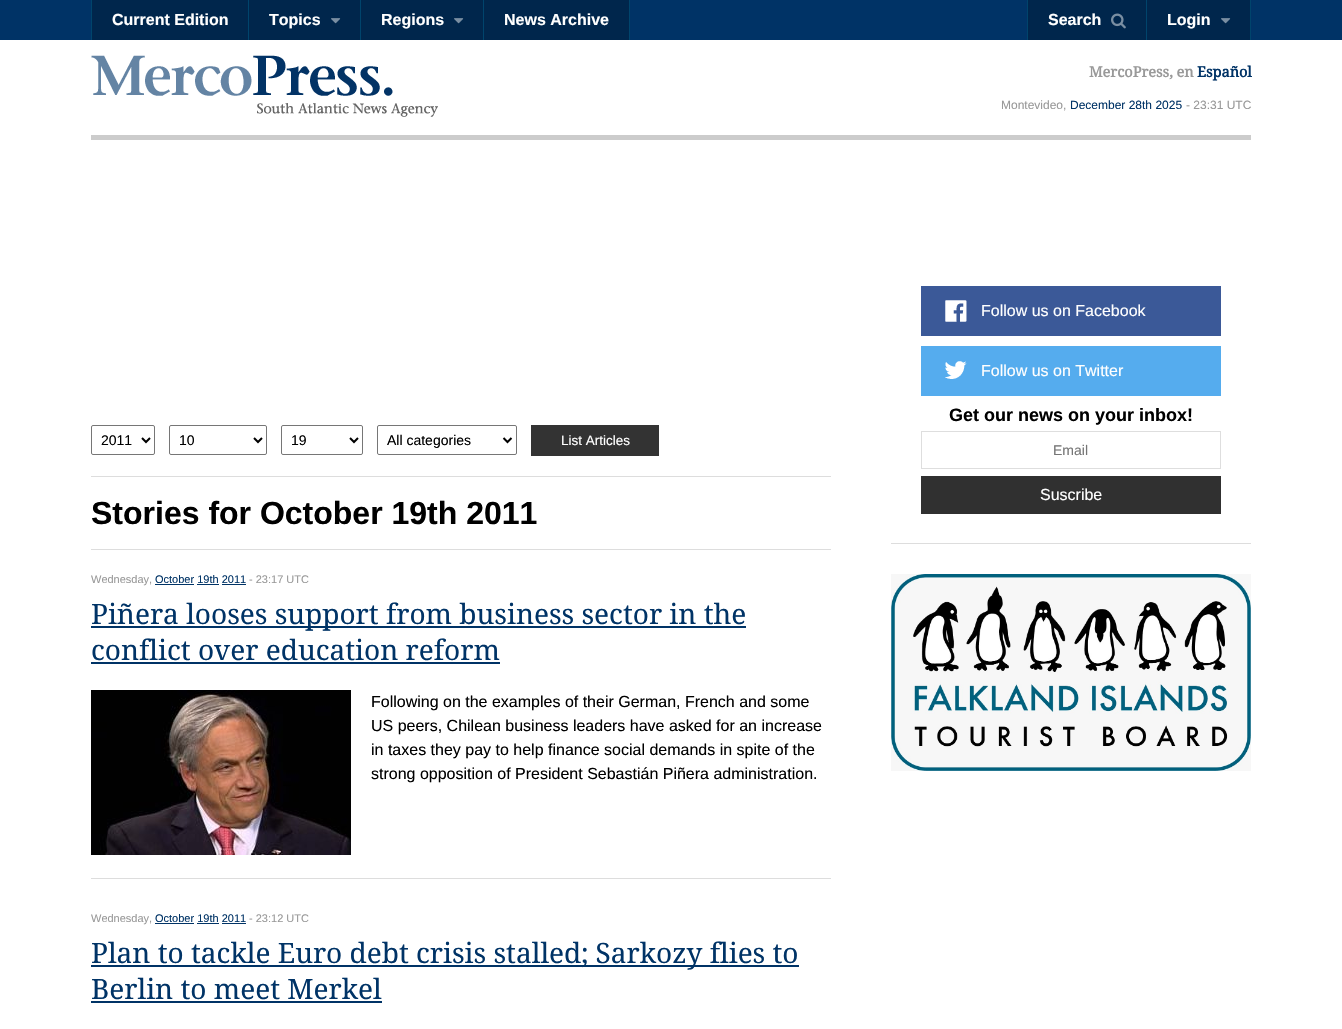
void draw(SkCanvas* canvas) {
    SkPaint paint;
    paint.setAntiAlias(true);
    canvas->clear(0xFFFFFFFF);
    paint.setColor(0xFF003366);
    canvas->drawRect(SkRect::MakeXYWH(0, 0, 1342, 40), paint);
    paint.setColor(0xFF00264C);
    canvas->drawRect(SkRect::MakeXYWH(92, 0, 156, 40), paint);
    paint.setColor(0xFF00446C);
    canvas->drawRect(SkRect::MakeXYWH(248, 0, 1, 40), paint);
    canvas->drawRect(SkRect::MakeXYWH(91, 0, 1, 40), paint);
    SkFont font1(fontMgr->matchFamilyStyle("Liberation Sans", SkFontStyle::Bold()), 16);
    font1.setSubpixel(true);
    paint.setColor(0xFFFFFFFF);
    canvas->drawString("Current Edition", 112, 25, font1, paint);
    paint.setColor(0xFF00264C);
    canvas->drawRect(SkRect::MakeXYWH(249, 0, 111, 40), paint);
    paint.setColor(0xFF00446C);
    canvas->drawRect(SkRect::MakeXYWH(360, 0, 1, 40), paint);
    paint.setColor(0xFFFFFFFF);
    canvas->drawString("Topics", 269, 25, font1, paint);
    canvas->drawImageRect(SkImages::DeferredFromEncodedData(SkData::MakeFromFileName("img1.png")), SkRect::MakeXYWH(331, 18, 10, 6), SkSamplingOptions());
    paint.setColor(0xFF00264C);
    canvas->drawRect(SkRect::MakeXYWH(361, 0, 122, 40), paint);
    paint.setColor(0xFF00446C);
    canvas->drawRect(SkRect::MakeXYWH(483, 0, 1, 40), paint);
    paint.setColor(0xFFFFFFFF);
    canvas->drawString("Regions", 381, 25, font1, paint);
    canvas->drawImageRect(SkImages::DeferredFromEncodedData(SkData::MakeFromFileName("img1.png")), SkRect::MakeXYWH(454, 18, 10, 6), SkSamplingOptions());
    paint.setColor(0xFF00264C);
    canvas->drawRect(SkRect::MakeXYWH(484, 0, 145, 40), paint);
    paint.setColor(0xFF00446C);
    canvas->drawRect(SkRect::MakeXYWH(629, 0, 1, 40), paint);
    paint.setColor(0xFFFFFFFF);
    canvas->drawString("News Archive", 504, 25, font1, paint);
    paint.setColor(0xFF00264C);
    canvas->drawRect(SkRect::MakeXYWH(1028, 0, 118, 40), paint);
    paint.setColor(0xFF00446C);
    canvas->drawRect(SkRect::MakeXYWH(1146, 0, 1, 40), paint);
    canvas->drawRect(SkRect::MakeXYWH(1027, 0, 1, 40), paint);
    paint.setColor(0xFFFFFFFF);
    canvas->drawString("Search", 1048, 25, font1, paint);
    canvas->drawImageRect(SkImages::DeferredFromEncodedData(SkData::MakeFromFileName("img2.png")), SkRect::MakeXYWH(1111, 13, 15, 16), SkSamplingOptions());
    paint.setColor(0xFF00264C);
    canvas->drawRect(SkRect::MakeXYWH(1147, 0, 103, 40), paint);
    paint.setColor(0xFF00446C);
    canvas->drawRect(SkRect::MakeXYWH(1250, 0, 1, 40), paint);
    paint.setColor(0xFFFFFFFF);
    canvas->drawString("Login", 1167, 25, font1, paint);
    canvas->drawImageRect(SkImages::DeferredFromEncodedData(SkData::MakeFromFileName("img1.png")), SkRect::MakeXYWH(1221, 18, 10, 6), SkSamplingOptions());
    paint.setColor(0xFFCCCCCC);
    canvas->drawRect(SkRect::MakeXYWH(91, 135, 1160, 5), paint);
    canvas->drawImageRect(SkImages::DeferredFromEncodedData(SkData::MakeFromFileName("img3.png")), SkRect::MakeXYWH(91, 55, 347, 62), SkSamplingOptions());
    SkFont font2(fontMgr->matchFamilyStyle("Droid Serif", SkFontStyle::Bold()), 14.5f);
    font2.setSubpixel(true);
    paint.setColor(0xFF999999);
    canvas->drawString("MercoPress, en", 1089, 77, font2, paint);
    paint.setColor(0xFF003366);
    canvas->drawString("Español", 1197, 77, font2, paint);
    SkFont font3(fontMgr->matchFamilyStyle("Liberation Sans", SkFontStyle::Normal()), 12);
    font3.setSubpixel(true);
    paint.setColor(0xFF999999);
    canvas->drawString("Montevideo,", 1001, 109, font3, paint);
    paint.setColor(0xFF003366);
    canvas->drawString("December 28th 2025", 1070, 109, font3, paint);
    paint.setColor(0xFF999999);
    canvas->drawString("- 23:31 UTC", 1186, 109, font3, paint);
    paint.setColor(0xFFDDDDDD);
    canvas->drawRect(SkRect::MakeXYWH(891, 543, 360, 1), paint);
    paint.setColor(0xFF3B5998);
    canvas->drawRect(SkRect::MakeXYWH(921, 286, 300, 50), paint);
    canvas->drawImageRect(SkImages::DeferredFromEncodedData(SkData::MakeFromFileName("img4.png")), SkRect::MakeXYWH(945, 300, 22, 22), SkSamplingOptions());
    SkFont font4(fontMgr->matchFamilyStyle("Liberation Sans", SkFontStyle::Normal()), 16);
    font4.setSubpixel(true);
    paint.setColor(0xFFFFFFFF);
    canvas->drawString("Follow us on Facebook", 981, 316, font4, paint);
    paint.setColor(0xFF55ACEE);
    canvas->drawRect(SkRect::MakeXYWH(921, 346, 300, 50), paint);
    canvas->drawImageRect(SkImages::DeferredFromEncodedData(SkData::MakeFromFileName("img5.png")), SkRect::MakeXYWH(945, 361, 22, 18), SkSamplingOptions());
    paint.setColor(0xFFFFFFFF);
    canvas->drawString("Follow us on Twitter", 981, 376, font4, paint);
    SkFont font5(fontMgr->matchFamilyStyle("Liberation Sans", SkFontStyle::Bold()), 18);
    font5.setSubpixel(true);
    paint.setColor(0xFF000000);
    canvas->drawString("Get our news on your inbox!", 949, 421, font5, paint);
    paint.setStyle(SkPaint::kStroke_Style);
    paint.setStrokeWidth(1);
    paint.setColor(0xFFDEDEDE);
    canvas->drawRect(SkRect::MakeXYWH(921.5f, 431.5f, 299, 37), paint);
    SkFont font6(fontMgr->matchFamilyStyle("Liberation Sans", SkFontStyle::Normal()), 14);
    font6.setSubpixel(true);
    paint.setStyle(SkPaint::kFill_Style);
    paint.setColor(0xFF757575);
    canvas->drawString("Email", 1053, 455, font6, paint);
    paint.setColor(0xFF303030);
    canvas->drawRect(SkRect::MakeXYWH(921, 476, 300, 38), paint);
    paint.setColor(0xFFFFFFFF);
    canvas->drawString("Suscribe", 1040, 500, font4, paint);
    canvas->drawImageRect(SkImages::DeferredFromEncodedData(SkData::MakeFromFileName("img6.png")), SkRect::MakeXYWH(891, 574, 360, 197), SkSamplingOptions());
    paint.setColor(0xFFDDDDDD);
    canvas->drawRect(SkRect::MakeXYWH(91, 476, 740, 1), paint);
    paint.setStyle(SkPaint::kStroke_Style);
    paint.setColor(0xFF767676);
    canvas->drawRoundRect(SkRect::MakeXYWH(91.5f, 425.5f, 63, 29), 1.5f, 1.5f, paint);
    paint.setStrokeWidth(2);
    paint.setColor(0xFF000000);
    canvas->drawPath(SkPathBuilder().moveTo(142, 438).lineTo(146, 442).lineTo(150, 438).detach(), paint);
    paint.setStyle(SkPaint::kFill_Style);
    canvas->drawString("2011", 101, 445, font6, paint);
    paint.setStyle(SkPaint::kStroke_Style);
    paint.setStrokeWidth(1);
    paint.setColor(0xFF767676);
    canvas->drawRoundRect(SkRect::MakeXYWH(169.5f, 425.5f, 97, 29), 1.5f, 1.5f, paint);
    paint.setStrokeWidth(2);
    paint.setColor(0xFF000000);
    canvas->drawPath(SkPathBuilder().moveTo(254, 438).lineTo(258, 442).lineTo(262, 438).detach(), paint);
    paint.setStyle(SkPaint::kFill_Style);
    canvas->drawString("10", 179, 445, font6, paint);
    paint.setStyle(SkPaint::kStroke_Style);
    paint.setStrokeWidth(1);
    paint.setColor(0xFF767676);
    canvas->drawRoundRect(SkRect::MakeXYWH(281.5f, 425.5f, 81, 29), 1.5f, 1.5f, paint);
    paint.setStrokeWidth(2);
    paint.setColor(0xFF000000);
    canvas->drawPath(SkPathBuilder().moveTo(350, 438).lineTo(354, 442).lineTo(358, 438).detach(), paint);
    paint.setStyle(SkPaint::kFill_Style);
    canvas->drawString("19", 291, 445, font6, paint);
    paint.setStyle(SkPaint::kStroke_Style);
    paint.setStrokeWidth(1);
    paint.setColor(0xFF767676);
    canvas->drawRoundRect(SkRect::MakeXYWH(377.5f, 425.5f, 139, 29), 1.5f, 1.5f, paint);
    paint.setStrokeWidth(2);
    paint.setColor(0xFF000000);
    canvas->drawPath(SkPathBuilder().moveTo(503.5f, 438).lineTo(507.5f, 442).lineTo(511.5f, 438).detach(), paint);
    paint.setStyle(SkPaint::kFill_Style);
    canvas->drawString("All categories", 387, 445, font6, paint);
    paint.setColor(0xFF333333);
    canvas->drawRect(SkRect::MakeXYWH(531, 425, 128, 31), paint);
    SkFont font7(fontMgr->matchFamilyStyle("Liberation Sans", SkFontStyle::Normal()), 13.5f);
    font7.setSubpixel(true);
    paint.setColor(0xFFFFFFFF);
    canvas->drawString("List Articles", 561, 445, font7, paint);
    paint.setColor(0xFFDDDDDD);
    canvas->drawRect(SkRect::MakeXYWH(91, 549, 740, 1), paint);
    SkFont font8(fontMgr->matchFamilyStyle("Liberation Sans", SkFontStyle::Bold()), 32);
    font8.setSubpixel(true);
    paint.setColor(0xFF000000);
    canvas->drawString("Stories for October 19th 2011", 91, 524, font8, paint);
    paint.setColor(0xFFDDDDDD);
    canvas->drawRect(SkRect::MakeXYWH(91, 878, 740, 1), paint);
    SkFont font9(fontMgr->matchFamilyStyle("Liberation Sans", SkFontStyle::Normal()), 11);
    font9.setSubpixel(true);
    paint.setColor(0xFF999999);
    canvas->drawString("Wednesday,", 91, 583, font9, paint);
    paint.setColor(0xFF003366);
    canvas->drawString("October 19th 2011", 155, 583, font9, paint);
    canvas->drawRect(SkRect::MakeXYWH(155, 584, 39, 1), paint);
    canvas->drawRect(SkRect::MakeXYWH(197, 584, 22, 1), paint);
    canvas->drawRect(SkRect::MakeXYWH(222, 584, 24, 1), paint);
    paint.setColor(0xFF999999);
    canvas->drawString("- 23:17 UTC", 249, 583, font9, paint);
    paint.setColor(0xFF003366);
    canvas->drawRect(SkRect::MakeXYWH(91, 626, 655, 2), paint);
    SkFont font10(fontMgr->matchFamilyStyle("Droid Serif", SkFontStyle::Normal()), 28);
    font10.setSubpixel(true);
    canvas->drawString("Piñera looses support from business sector in the", 91, 624, font10, paint);
    canvas->drawString("conflict over education reform", 91, 660, font10, paint);
    canvas->drawRect(SkRect::MakeXYWH(91, 662, 409, 2), paint);
    canvas->drawImageRect(SkImages::DeferredFromEncodedData(SkData::MakeFromFileName("img7.png")), SkRect::MakeXYWH(91, 690, 260, 165), SkSamplingOptions());
    paint.setColor(0xFF000000);
    canvas->drawString("Following on the examples of their German, French and some", 371, 707, font4, paint);
    canvas->drawString("US peers, Chilean business leaders have asked for an increase", 371, 731, font4, paint);
    canvas->drawString("in taxes they pay to help finance social demands in spite of the", 371, 755, font4, paint);
    canvas->drawString("strong opposition of President Sebastián Piñera administration.", 371, 779, font4, paint);
    paint.setColor(0xFF999999);
    canvas->drawString("Wednesday,", 91, 922, font9, paint);
    paint.setColor(0xFF003366);
    canvas->drawString("October 19th 2011", 155, 922, font9, paint);
    canvas->drawRect(SkRect::MakeXYWH(155, 923, 39, 1), paint);
    canvas->drawRect(SkRect::MakeXYWH(197, 923, 22, 1), paint);
    canvas->drawRect(SkRect::MakeXYWH(222, 923, 24, 1), paint);
    paint.setColor(0xFF999999);
    canvas->drawString("- 23:12 UTC", 249, 922, font9, paint);
    paint.setColor(0xFF003366);
    canvas->drawRect(SkRect::MakeXYWH(91, 965, 708, 2), paint);
    canvas->drawString("Plan to tackle Euro debt crisis stalled; Sarkozy flies to", 91, 963, font10, paint);
    canvas->drawString("Berlin to meet Merkel", 91, 999, font10, paint);
    canvas->drawRect(SkRect::MakeXYWH(91, 1001, 291, 2), paint);
}
